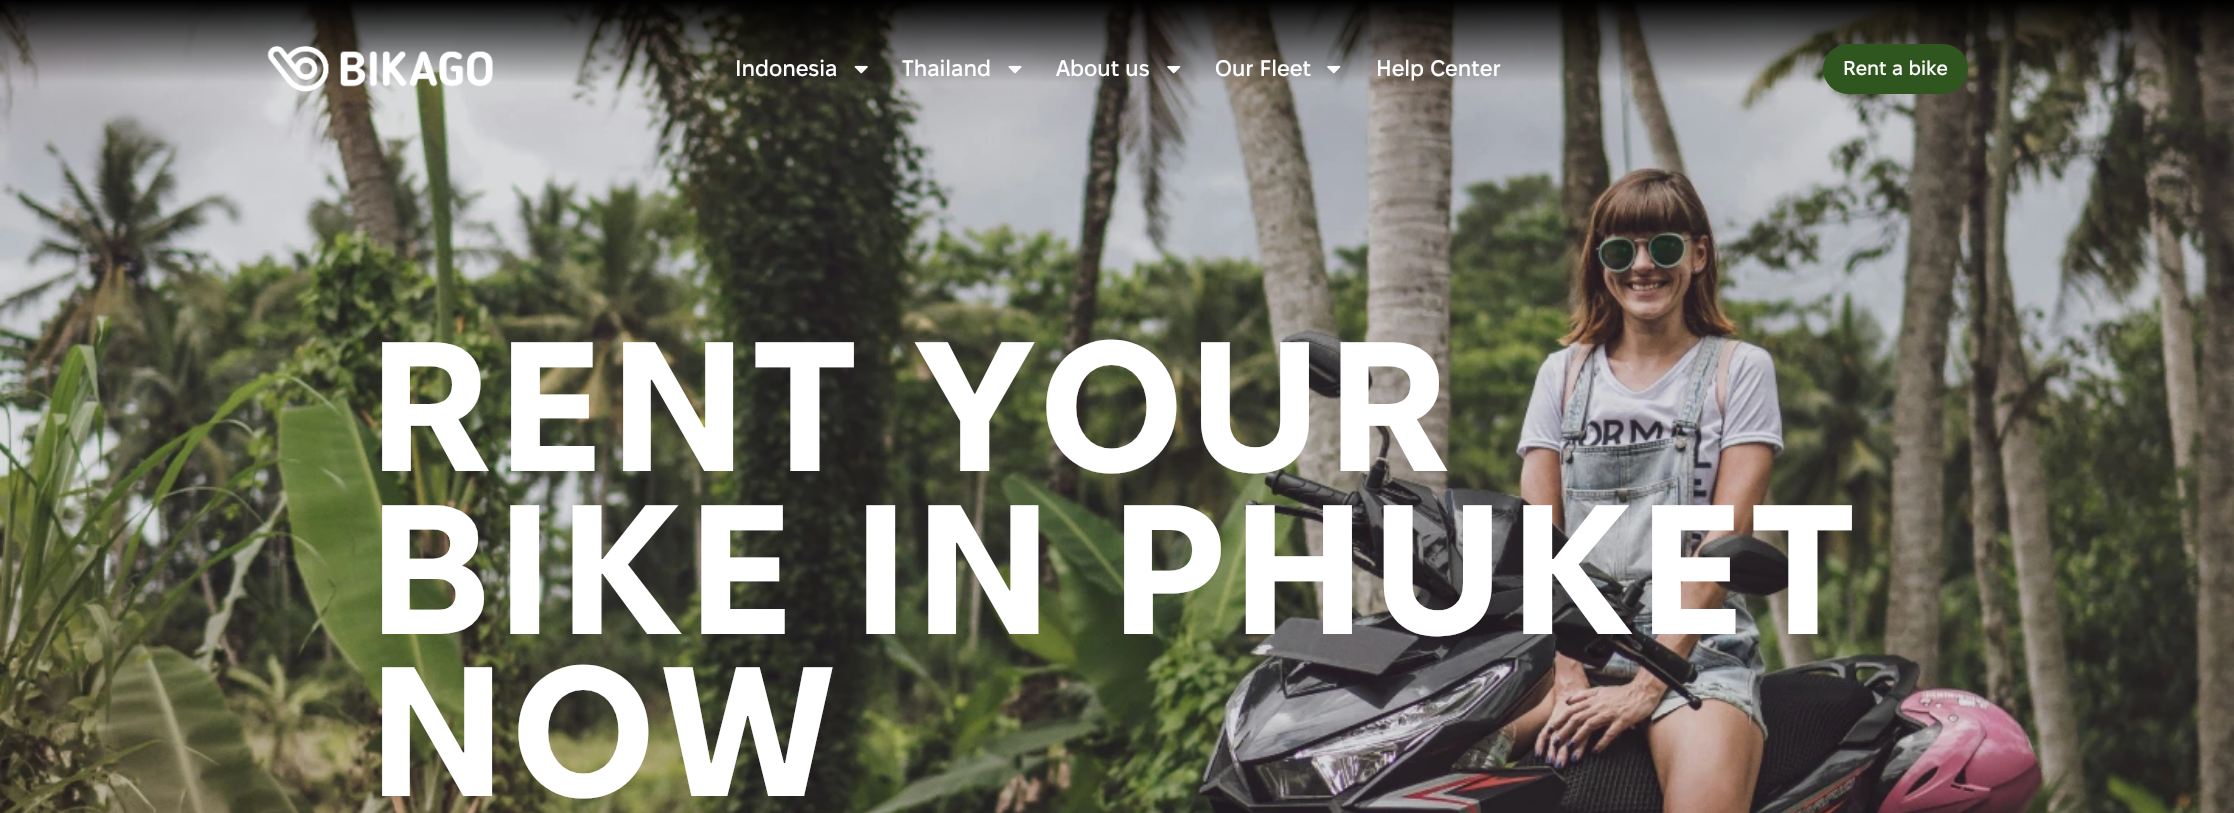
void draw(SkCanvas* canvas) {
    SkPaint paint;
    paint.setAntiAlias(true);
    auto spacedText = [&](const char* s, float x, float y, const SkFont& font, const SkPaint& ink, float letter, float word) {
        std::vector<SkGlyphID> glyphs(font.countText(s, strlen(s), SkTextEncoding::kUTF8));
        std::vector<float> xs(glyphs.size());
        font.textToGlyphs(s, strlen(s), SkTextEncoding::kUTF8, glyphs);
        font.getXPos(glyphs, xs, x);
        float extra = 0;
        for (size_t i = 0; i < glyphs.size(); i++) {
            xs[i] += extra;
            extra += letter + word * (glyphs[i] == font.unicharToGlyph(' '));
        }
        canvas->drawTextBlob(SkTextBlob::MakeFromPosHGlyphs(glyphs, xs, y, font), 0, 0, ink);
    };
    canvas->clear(0xFFFFFFFF);
    canvas->drawImageRect(SkImages::DeferredFromEncodedData(SkData::MakeFromFileName("img6.png")), SkRect::MakeXYWH(0, 0, 2234, 813), SkSamplingOptions());
    canvas->drawImageRect(SkImages::DeferredFromEncodedData(SkData::MakeFromFileName("img1.png")), SkRect::MakeXYWH(267, 46, 226, 46), SkSamplingOptions());
    SkFont font1(fontMgr->matchFamilyStyle("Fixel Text", SkFontStyle(500, SkFontStyle::kNormal_Width, SkFontStyle::kUpright_Slant)), 22.5f);
    font1.setSubpixel(true);
    paint.setColor(0xFFFFFFFF);
    canvas->drawString("Indonesia", 735, 76, font1, paint);
    canvas->drawImageRect(SkImages::DeferredFromEncodedData(SkData::MakeFromFileName("img2.png")), SkRect::MakeXYWH(854, 65, 14, 9), SkSamplingOptions());
    canvas->drawString("Thailand", 902, 76, font1, paint);
    canvas->drawImageRect(SkImages::DeferredFromEncodedData(SkData::MakeFromFileName("img3.png")), SkRect::MakeXYWH(1008, 65, 14, 9), SkSamplingOptions());
    canvas->drawString("About us", 1056, 76, font1, paint);
    canvas->drawImageRect(SkImages::DeferredFromEncodedData(SkData::MakeFromFileName("img4.png")), SkRect::MakeXYWH(1167, 65, 14, 9), SkSamplingOptions());
    canvas->drawString("Our Fleet", 1215, 76, font1, paint);
    canvas->drawImageRect(SkImages::DeferredFromEncodedData(SkData::MakeFromFileName("img5.png")), SkRect::MakeXYWH(1327, 65, 14, 9), SkSamplingOptions());
    canvas->drawString("Help Center", 1376, 76, font1, paint);
    paint.setColor(0xFF2F561E);
    canvas->drawRoundRect(SkRect::MakeXYWH(1823, 44, 145, 50), 25, 25, paint);
    SkFont font2(fontMgr->matchFamilyStyle("Fixel Text", SkFontStyle(500, SkFontStyle::kNormal_Width, SkFontStyle::kUpright_Slant)), 20);
    font2.setSubpixel(true);
    paint.setColor(0xFFFFFFFF);
    canvas->drawString("Rent a bike", 1843, 75, font2, paint);
    SkFont font3(fontMgr->matchFamilyStyle("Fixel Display", SkFontStyle::Bold()), 183.75f);
    font3.setSubpixel(true);
    spacedText("RENT YOUR", 368, 471, font3, paint, 5.25f, 0);
    spacedText("BIKE IN PHUKET", 368, 634, font3, paint, 5.25f, 0);
    spacedText("NOW", 368, 796, font3, paint, 5.25f, 0);
}
